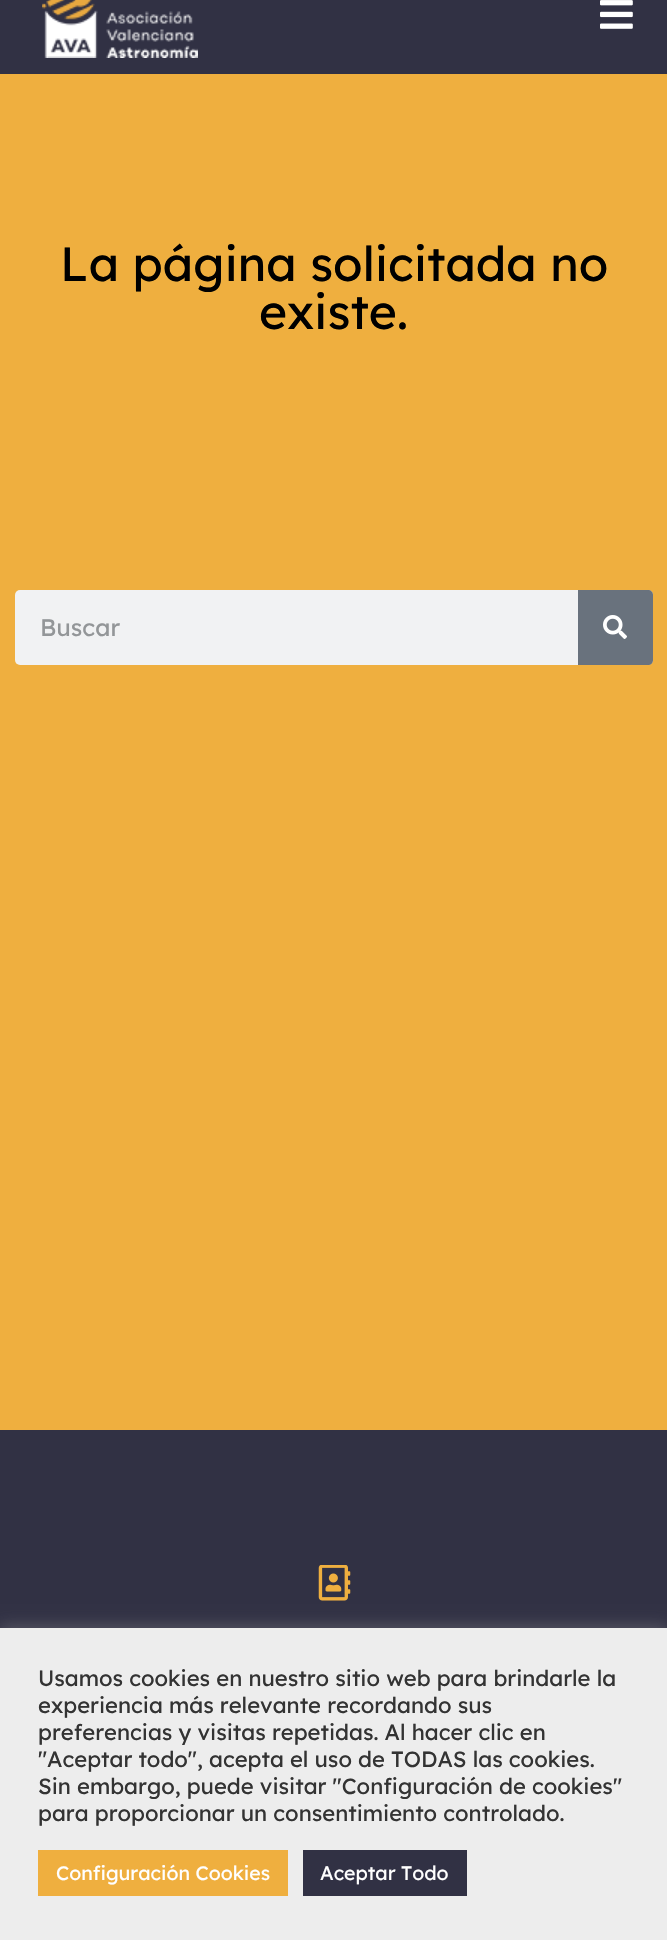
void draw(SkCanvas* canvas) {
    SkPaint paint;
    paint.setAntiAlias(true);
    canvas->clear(0xFF313144);
    canvas->drawImageRect(SkImages::DeferredFromEncodedData(SkData::MakeFromFileName("img1.png")), SkRect::MakeXYWH(42, 0, 156, 58), SkSamplingOptions());
    canvas->drawImageRect(SkImages::DeferredFromEncodedData(SkData::MakeFromFileName("img2.png")), SkRect::MakeXYWH(600, 0, 33, 29), SkSamplingOptions());
    paint.setColor(0xFFEFAF3F);
    canvas->drawRect(SkRect::MakeXYWH(0, 74, 667, 1356), paint);
    SkFont font1(fontMgr->matchFamilyStyle("Lexend", SkFontStyle::Normal()), 48);
    font1.setSubpixel(true);
    paint.setColor(0xFF000000);
    canvas->drawString("La página solicitada no", 60, 281, font1, paint);
    canvas->drawString("existe.", 259, 329, font1, paint);
    paint.setColor(0xFFF1F2F3);
    canvas->drawRoundRect(SkRect::MakeXYWH(15, 590, 638, 75), 5, 5, paint);
    SkFont font2(fontMgr->matchFamilyStyle("Lexend", SkFontStyle::Normal()), 24);
    font2.setSubpixel(true);
    paint.setColor(0xFF939698);
    canvas->drawString("Buscar", 40, 636, font2, paint);
    paint.setColor(0xFF69727D);
    canvas->drawPath(SkPathBuilder().moveTo(578, 590).lineTo(648, 590).cubicTo(651, 590, 653, 592, 653, 595).lineTo(653, 660).cubicTo(653, 663, 651, 665, 648, 665).lineTo(578, 665).close().detach(), paint);
    canvas->drawImageRect(SkImages::DeferredFromEncodedData(SkData::MakeFromFileName("img3.png")), SkRect::MakeXYWH(603, 615, 24, 24), SkSamplingOptions());
    canvas->drawImageRect(SkImages::DeferredFromEncodedData(SkData::MakeFromFileName("img4.png")), SkRect::MakeXYWH(318, 1565, 33, 36), SkSamplingOptions());
    paint.setColor(0x4DACABAB);
    paint.setMaskFilter(SkMaskFilter::MakeBlur(kNormal_SkBlurStyle, 7.5f));
    canvas->drawRect(SkRect::MakeXYWH(0, 1626, 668, 314), paint);
    paint.setMaskFilter(nullptr);
    paint.setColor(0xFFEDEDED);
    canvas->drawRect(SkRect::MakeXYWH(0, 1628, 667, 312), paint);
    SkFont font3(fontMgr->matchFamilyStyle("Lexend", SkFontStyle::Normal()), 22);
    font3.setSubpixel(true);
    paint.setColor(0xFF333333);
    canvas->drawString("Usamos cookies en nuestro sitio web para brindarle la", 38, 1686, font3, paint);
    canvas->drawString("experiencia más relevante recordando sus", 38, 1713, font3, paint);
    canvas->drawString("preferencias y visitas repetidas. Al hacer clic en", 38, 1740, font3, paint);
    canvas->drawString("\"Aceptar todo\", acepta el uso de TODAS las cookies.", 38, 1767, font3, paint);
    canvas->drawString("Sin embargo, puede visitar \"Configuración de cookies\"", 38, 1794, font3, paint);
    canvas->drawString("para proporcionar un consentimiento controlado.", 38, 1821, font3, paint);
    paint.setColor(0xFFEFAF3F);
    canvas->drawRect(SkRect::MakeXYWH(38, 1850, 250, 46), paint);
    SkFont font4(fontMgr->matchFamilyStyle("Lexend", SkFontStyle::Normal()), 19.5f);
    font4.setSubpixel(true);
    paint.setColor(0xFFFFFFFF);
    canvas->drawString("Configuración Cookies", 56, 1880, font4, paint);
    paint.setColor(0xFF313144);
    canvas->drawRect(SkRect::MakeXYWH(303, 1850, 164, 46), paint);
    paint.setColor(0xFFFFFFFF);
    canvas->drawString("Aceptar Todo", 320, 1880, font4, paint);
}
